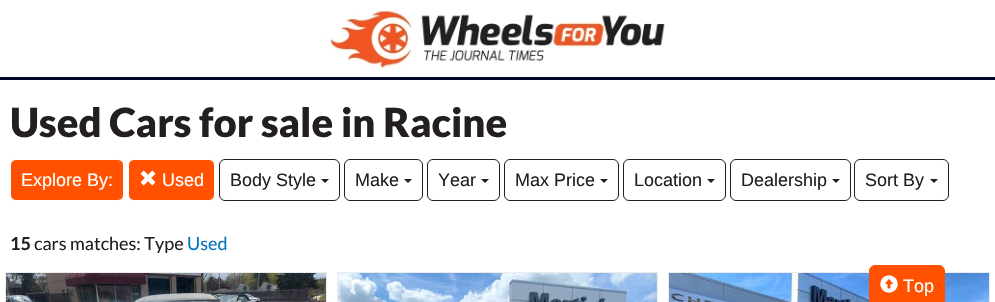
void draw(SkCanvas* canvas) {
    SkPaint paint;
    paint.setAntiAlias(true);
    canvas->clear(0xFFFFFFFF);
    paint.setColor(0xFF010727);
    canvas->drawRect(SkRect::MakeXYWH(0, 77, 995, 3), paint);
    canvas->drawImageRect(SkImages::DeferredFromEncodedData(SkData::MakeFromFileName("img1.png")), SkRect::MakeXYWH(324, 9, 341, 60), SkSamplingOptions());
    SkFont font1(fontMgr->matchFamilyStyle("Lato", SkFontStyle(900, SkFontStyle::kNormal_Width, SkFontStyle::kUpright_Slant)), 40);
    font1.setSubpixel(true);
    paint.setColor(0xFF231F20);
    canvas->drawString("Used Cars for sale in Racine", 10, 137, font1, paint);
    paint.setColor(0xFFFF5100);
    canvas->drawRoundRect(SkRect::MakeXYWH(10.5f, 159.5f, 113, 41), 5.5f, 5.5f, paint);
    paint.setStyle(SkPaint::kStroke_Style);
    paint.setStrokeWidth(1);
    paint.setColor(0xFFFFFFFF);
    canvas->drawRoundRect(SkRect::MakeXYWH(10.5f, 159.5f, 113, 41), 5.5f, 5.5f, paint);
    SkFont font2(fontMgr->matchFamilyStyle("Liberation Sans", SkFontStyle::Normal()), 18);
    font2.setSubpixel(true);
    paint.setStyle(SkPaint::kFill_Style);
    canvas->drawString("Explore By:", 21, 186, font2, paint);
    paint.setColor(0xFFFF5100);
    canvas->drawRoundRect(SkRect::MakeXYWH(128.5f, 159.5f, 86, 41), 5.5f, 5.5f, paint);
    paint.setStyle(SkPaint::kStroke_Style);
    paint.setColor(0xFFFFFFFF);
    canvas->drawRoundRect(SkRect::MakeXYWH(128.5f, 159.5f, 86, 41), 5.5f, 5.5f, paint);
    canvas->drawImageRect(SkImages::DeferredFromEncodedData(SkData::MakeFromFileName("img2.png")), SkRect::MakeXYWH(140, 170, 16, 16), SkSamplingOptions());
    paint.setStyle(SkPaint::kFill_Style);
    canvas->drawString("Used", 162, 186, font2, paint);
    paint.setStyle(SkPaint::kStroke_Style);
    paint.setColor(0xFF1F1F1F);
    canvas->drawRoundRect(SkRect::MakeXYWH(219.5f, 159.5f, 120, 41), 5.5f, 5.5f, paint);
    paint.setStyle(SkPaint::kFill_Style);
    paint.setColor(0xFF231F20);
    canvas->drawString("Body Style", 230, 186, font2, paint);
    paint.setColor(0xFF1F1F1F);
    canvas->drawPath(SkPathBuilder().moveTo(321, 179).lineTo(329, 179).lineTo(325, 183).close().detach(), paint);
    paint.setStyle(SkPaint::kStroke_Style);
    canvas->drawRoundRect(SkRect::MakeXYWH(344.5f, 159.5f, 78, 41), 5.5f, 5.5f, paint);
    paint.setStyle(SkPaint::kFill_Style);
    paint.setColor(0xFF231F20);
    canvas->drawString("Make", 355, 186, font2, paint);
    paint.setColor(0xFF1F1F1F);
    canvas->drawPath(SkPathBuilder().moveTo(404, 179).lineTo(412, 179).lineTo(408, 183).close().detach(), paint);
    paint.setStyle(SkPaint::kStroke_Style);
    canvas->drawRoundRect(SkRect::MakeXYWH(427.5f, 159.5f, 72, 41), 5.5f, 5.5f, paint);
    paint.setStyle(SkPaint::kFill_Style);
    paint.setColor(0xFF231F20);
    canvas->drawString("Year", 438, 186, font2, paint);
    paint.setColor(0xFF1F1F1F);
    canvas->drawPath(SkPathBuilder().moveTo(481, 179).lineTo(489, 179).lineTo(485, 183).close().detach(), paint);
    paint.setStyle(SkPaint::kStroke_Style);
    canvas->drawRoundRect(SkRect::MakeXYWH(504.5f, 159.5f, 114, 41), 5.5f, 5.5f, paint);
    paint.setStyle(SkPaint::kFill_Style);
    paint.setColor(0xFF231F20);
    canvas->drawString("Max Price", 515, 186, font2, paint);
    paint.setColor(0xFF1F1F1F);
    canvas->drawPath(SkPathBuilder().moveTo(600, 179).lineTo(608, 179).lineTo(604, 183).close().detach(), paint);
    paint.setStyle(SkPaint::kStroke_Style);
    canvas->drawRoundRect(SkRect::MakeXYWH(623.5f, 159.5f, 102, 41), 5.5f, 5.5f, paint);
    paint.setStyle(SkPaint::kFill_Style);
    paint.setColor(0xFF231F20);
    canvas->drawString("Location", 634, 186, font2, paint);
    paint.setColor(0xFF1F1F1F);
    canvas->drawPath(SkPathBuilder().moveTo(707, 179).lineTo(715, 179).lineTo(711, 183).close().detach(), paint);
    paint.setStyle(SkPaint::kStroke_Style);
    canvas->drawRoundRect(SkRect::MakeXYWH(730.5f, 159.5f, 120, 41), 5.5f, 5.5f, paint);
    paint.setStyle(SkPaint::kFill_Style);
    paint.setColor(0xFF231F20);
    canvas->drawString("Dealership", 741, 186, font2, paint);
    paint.setColor(0xFF1F1F1F);
    canvas->drawPath(SkPathBuilder().moveTo(832, 179).lineTo(840, 179).lineTo(836, 183).close().detach(), paint);
    paint.setStyle(SkPaint::kStroke_Style);
    canvas->drawRoundRect(SkRect::MakeXYWH(854.5f, 159.5f, 94, 41), 5.5f, 5.5f, paint);
    paint.setStyle(SkPaint::kFill_Style);
    paint.setColor(0xFF231F20);
    canvas->drawString("Sort By", 865, 186, font2, paint);
    paint.setColor(0xFF1F1F1F);
    canvas->drawPath(SkPathBuilder().moveTo(930, 179).lineTo(938, 179).lineTo(934, 183).close().detach(), paint);
    SkFont font3(fontMgr->matchFamilyStyle("Lato", SkFontStyle::Bold()), 18);
    font3.setSubpixel(true);
    paint.setColor(0xFF231F20);
    canvas->drawString("15", 10, 250, font3, paint);
    SkFont font4(fontMgr->matchFamilyStyle("Lato", SkFontStyle::Normal()), 18);
    font4.setSubpixel(true);
    canvas->drawString("cars matches: Type", 34, 250, font4, paint);
    paint.setColor(0xFF0073BD);
    canvas->drawString("Used", 187, 250, font4, paint);
    paint.setStyle(SkPaint::kStroke_Style);
    paint.setColor(0xFFEBEBEB);
    canvas->drawRect(SkRect::MakeXYWH(5.5f, 272.5f, 321, 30), paint);
    canvas->drawImageRect(SkImages::DeferredFromEncodedData(SkData::MakeFromFileName("img3.png")), SkRect::MakeXYWH(6, 273, 320, 29), SkSamplingOptions());
    canvas->drawRect(SkRect::MakeXYWH(337.5f, 272.5f, 320, 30), paint);
    canvas->drawImageRect(SkImages::DeferredFromEncodedData(SkData::MakeFromFileName("img4.png")), SkRect::MakeXYWH(338, 273, 319, 29), SkSamplingOptions());
    canvas->drawRect(SkRect::MakeXYWH(668.5f, 272.5f, 321, 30), paint);
    canvas->drawImageRect(SkImages::DeferredFromEncodedData(SkData::MakeFromFileName("img5.png")), SkRect::MakeXYWH(669, 273, 320, 29), SkSamplingOptions());
    paint.setStyle(SkPaint::kFill_Style);
    paint.setColor(0xFFFF5100);
    canvas->drawRoundRect(SkRect::MakeXYWH(869.5f, 265.5f, 75, 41), 5.5f, 5.5f, paint);
    paint.setStyle(SkPaint::kStroke_Style);
    canvas->drawRoundRect(SkRect::MakeXYWH(869.5f, 265.5f, 75, 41), 5.5f, 5.5f, paint);
    canvas->drawImageRect(SkImages::DeferredFromEncodedData(SkData::MakeFromFileName("img6.png")), SkRect::MakeXYWH(880, 275, 18, 18), SkSamplingOptions());
    paint.setStyle(SkPaint::kFill_Style);
    paint.setColor(0xFFFFFFFF);
    canvas->drawString("Top", 903, 292, font2, paint);
}
